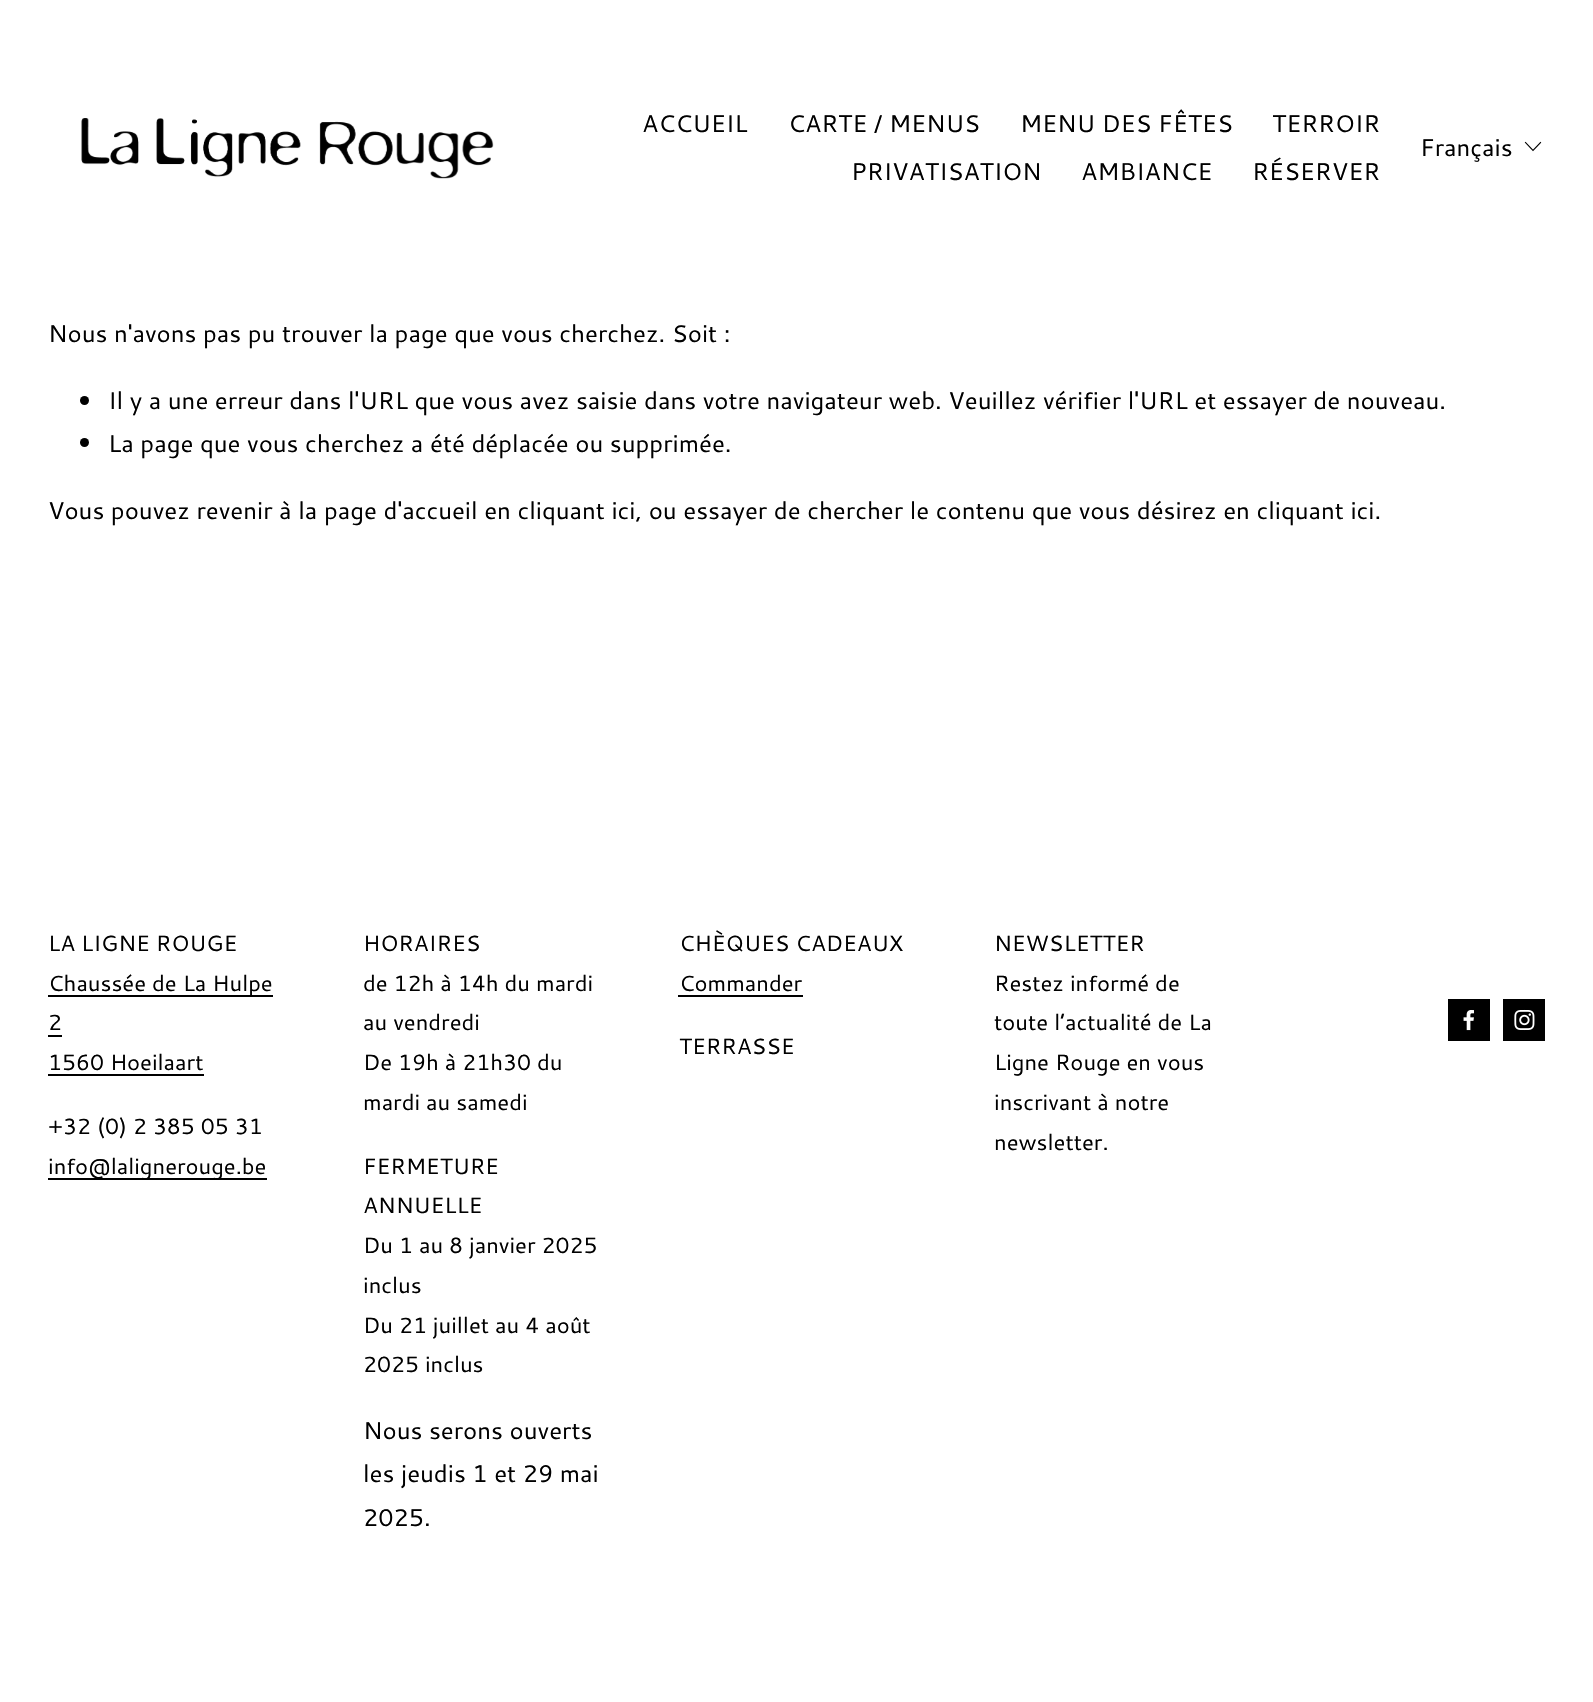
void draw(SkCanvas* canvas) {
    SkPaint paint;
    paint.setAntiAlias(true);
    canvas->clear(0xFFFFFFFF);
    canvas->drawImageRect(SkImages::DeferredFromEncodedData(SkData::MakeFromFileName("img1.png")), SkRect::MakeXYWH(81, 118, 413, 61), SkSamplingOptions());
    SkFont font1(fontMgr->matchFamilyStyle("Cantarell", SkFontStyle::Normal()), 24);
    font1.setSubpixel(true);
    paint.setColor(0xFF000000);
    canvas->drawString("ACCUEIL", 642, 132, font1, paint);
    canvas->drawString("CARTE / MENUS", 788, 132, font1, paint);
    canvas->drawString("MENU DES FÊTES", 1020, 132, font1, paint);
    canvas->drawString("TERROIR", 1272, 132, font1, paint);
    canvas->drawString("PRIVATISATION", 851, 180, font1, paint);
    canvas->drawString("AMBIANCE", 1081, 180, font1, paint);
    canvas->drawString("RÉSERVER", 1252, 180, font1, paint);
    canvas->drawString("Français", 1420, 156, font1, paint);
    paint.setStyle(SkPaint::kStroke_Style);
    paint.setStrokeWidth(1.1f);
    paint.setStrokeCap(SkPaint::kSquare_Cap);
    canvas->drawPath(SkPathBuilder().moveTo(1540.5f, 142.5f).lineTo(1533, 150.5f).lineTo(1525.5f, 142.5f).detach(), paint);
    paint.setStyle(SkPaint::kFill_Style);
    canvas->drawString("Nous n'avons pas pu trouver la page que vous cherchez. Soit :", 48, 342, font1, paint);
    canvas->drawCircle(84.5f, 400.5f, 4.5f, paint);
    canvas->drawString("Il y a une erreur dans l'URL que vous avez saisie dans votre navigateur web. Veuillez vérifier l'URL et essayer de nouveau.", 108, 409, font1, paint);
    canvas->drawCircle(84.5f, 442.5f, 4.5f, paint);
    canvas->drawString("La page que vous cherchez a été déplacée ou supprimée.", 108, 452, font1, paint);
    canvas->drawString("Vous pouvez revenir à la page d'accueil en cliquant ici, ou essayer de chercher le contenu que vous désirez en cliquant ici.", 48, 519, font1, paint);
    SkFont font2(fontMgr->matchFamilyStyle("Cantarell", SkFontStyle::Normal()), 22);
    font2.setSubpixel(true);
    canvas->drawString("LA LIGNE ROUGE", 48, 951, font2, paint);
    canvas->drawRect(SkRect::MakeXYWH(48, 995, 225, 2), paint);
    canvas->drawString("Chaussée de La Hulpe", 48, 991, font2, paint);
    canvas->drawString("2", 48, 1030, font2, paint);
    canvas->drawRect(SkRect::MakeXYWH(48, 1035, 14, 2), paint);
    canvas->drawString("1560 Hoeilaart", 48, 1070, font2, paint);
    canvas->drawRect(SkRect::MakeXYWH(48, 1074, 156, 2), paint);
    canvas->drawString("+32 (0) 2 385 05 31", 48, 1134, font2, paint);
    canvas->drawRect(SkRect::MakeXYWH(48, 1178, 219, 2), paint);
    canvas->drawString("info@lalignerouge.be", 48, 1174, font2, paint);
    canvas->drawString("HORAIRES", 363, 951, font2, paint);
    canvas->drawString("de 12h à 14h du mardi", 363, 991, font2, paint);
    canvas->drawString("au vendredi", 363, 1030, font2, paint);
    canvas->drawString("De 19h à 21h30 du", 363, 1070, font2, paint);
    canvas->drawString("mardi au samedi", 363, 1110, font2, paint);
    canvas->drawString("FERMETURE", 363, 1174, font2, paint);
    canvas->drawString("ANNUELLE", 363, 1213, font2, paint);
    canvas->drawString("Du 1 au 8 janvier 2025", 363, 1253, font2, paint);
    canvas->drawString("inclus", 363, 1293, font2, paint);
    canvas->drawString("Du 21 juillet au 4 août", 363, 1333, font2, paint);
    canvas->drawString("2025 inclus", 363, 1372, font2, paint);
    canvas->drawString("Nous serons ouverts", 363, 1439, font1, paint);
    canvas->drawString("les jeudis 1 et 29 mai", 363, 1482, font1, paint);
    canvas->drawString("2025.", 363, 1526, font1, paint);
    canvas->drawString("CHÈQUES CADEAUX", 679, 951, font2, paint);
    canvas->drawString("Commander", 679, 991, font2, paint);
    canvas->drawRect(SkRect::MakeXYWH(678, 995, 125, 2), paint);
    canvas->drawString("TERRASSE", 679, 1054, font2, paint);
    canvas->drawString("NEWSLETTER", 994, 951, font2, paint);
    canvas->drawString("Restez informé de", 994, 991, font2, paint);
    canvas->drawString("toute l’actualité de La", 994, 1030, font2, paint);
    canvas->drawString("Ligne Rouge en vous", 994, 1070, font2, paint);
    canvas->drawString("inscrivant à notre", 994, 1110, font2, paint);
    canvas->drawString("newsletter.", 994, 1150, font2, paint);
    canvas->drawImageRect(SkImages::DeferredFromEncodedData(SkData::MakeFromFileName("img2.png")), SkRect::MakeXYWH(1448, 999, 42, 42), SkSamplingOptions());
    canvas->drawImageRect(SkImages::DeferredFromEncodedData(SkData::MakeFromFileName("img3.png")), SkRect::MakeXYWH(1503, 999, 42, 42), SkSamplingOptions());
}
